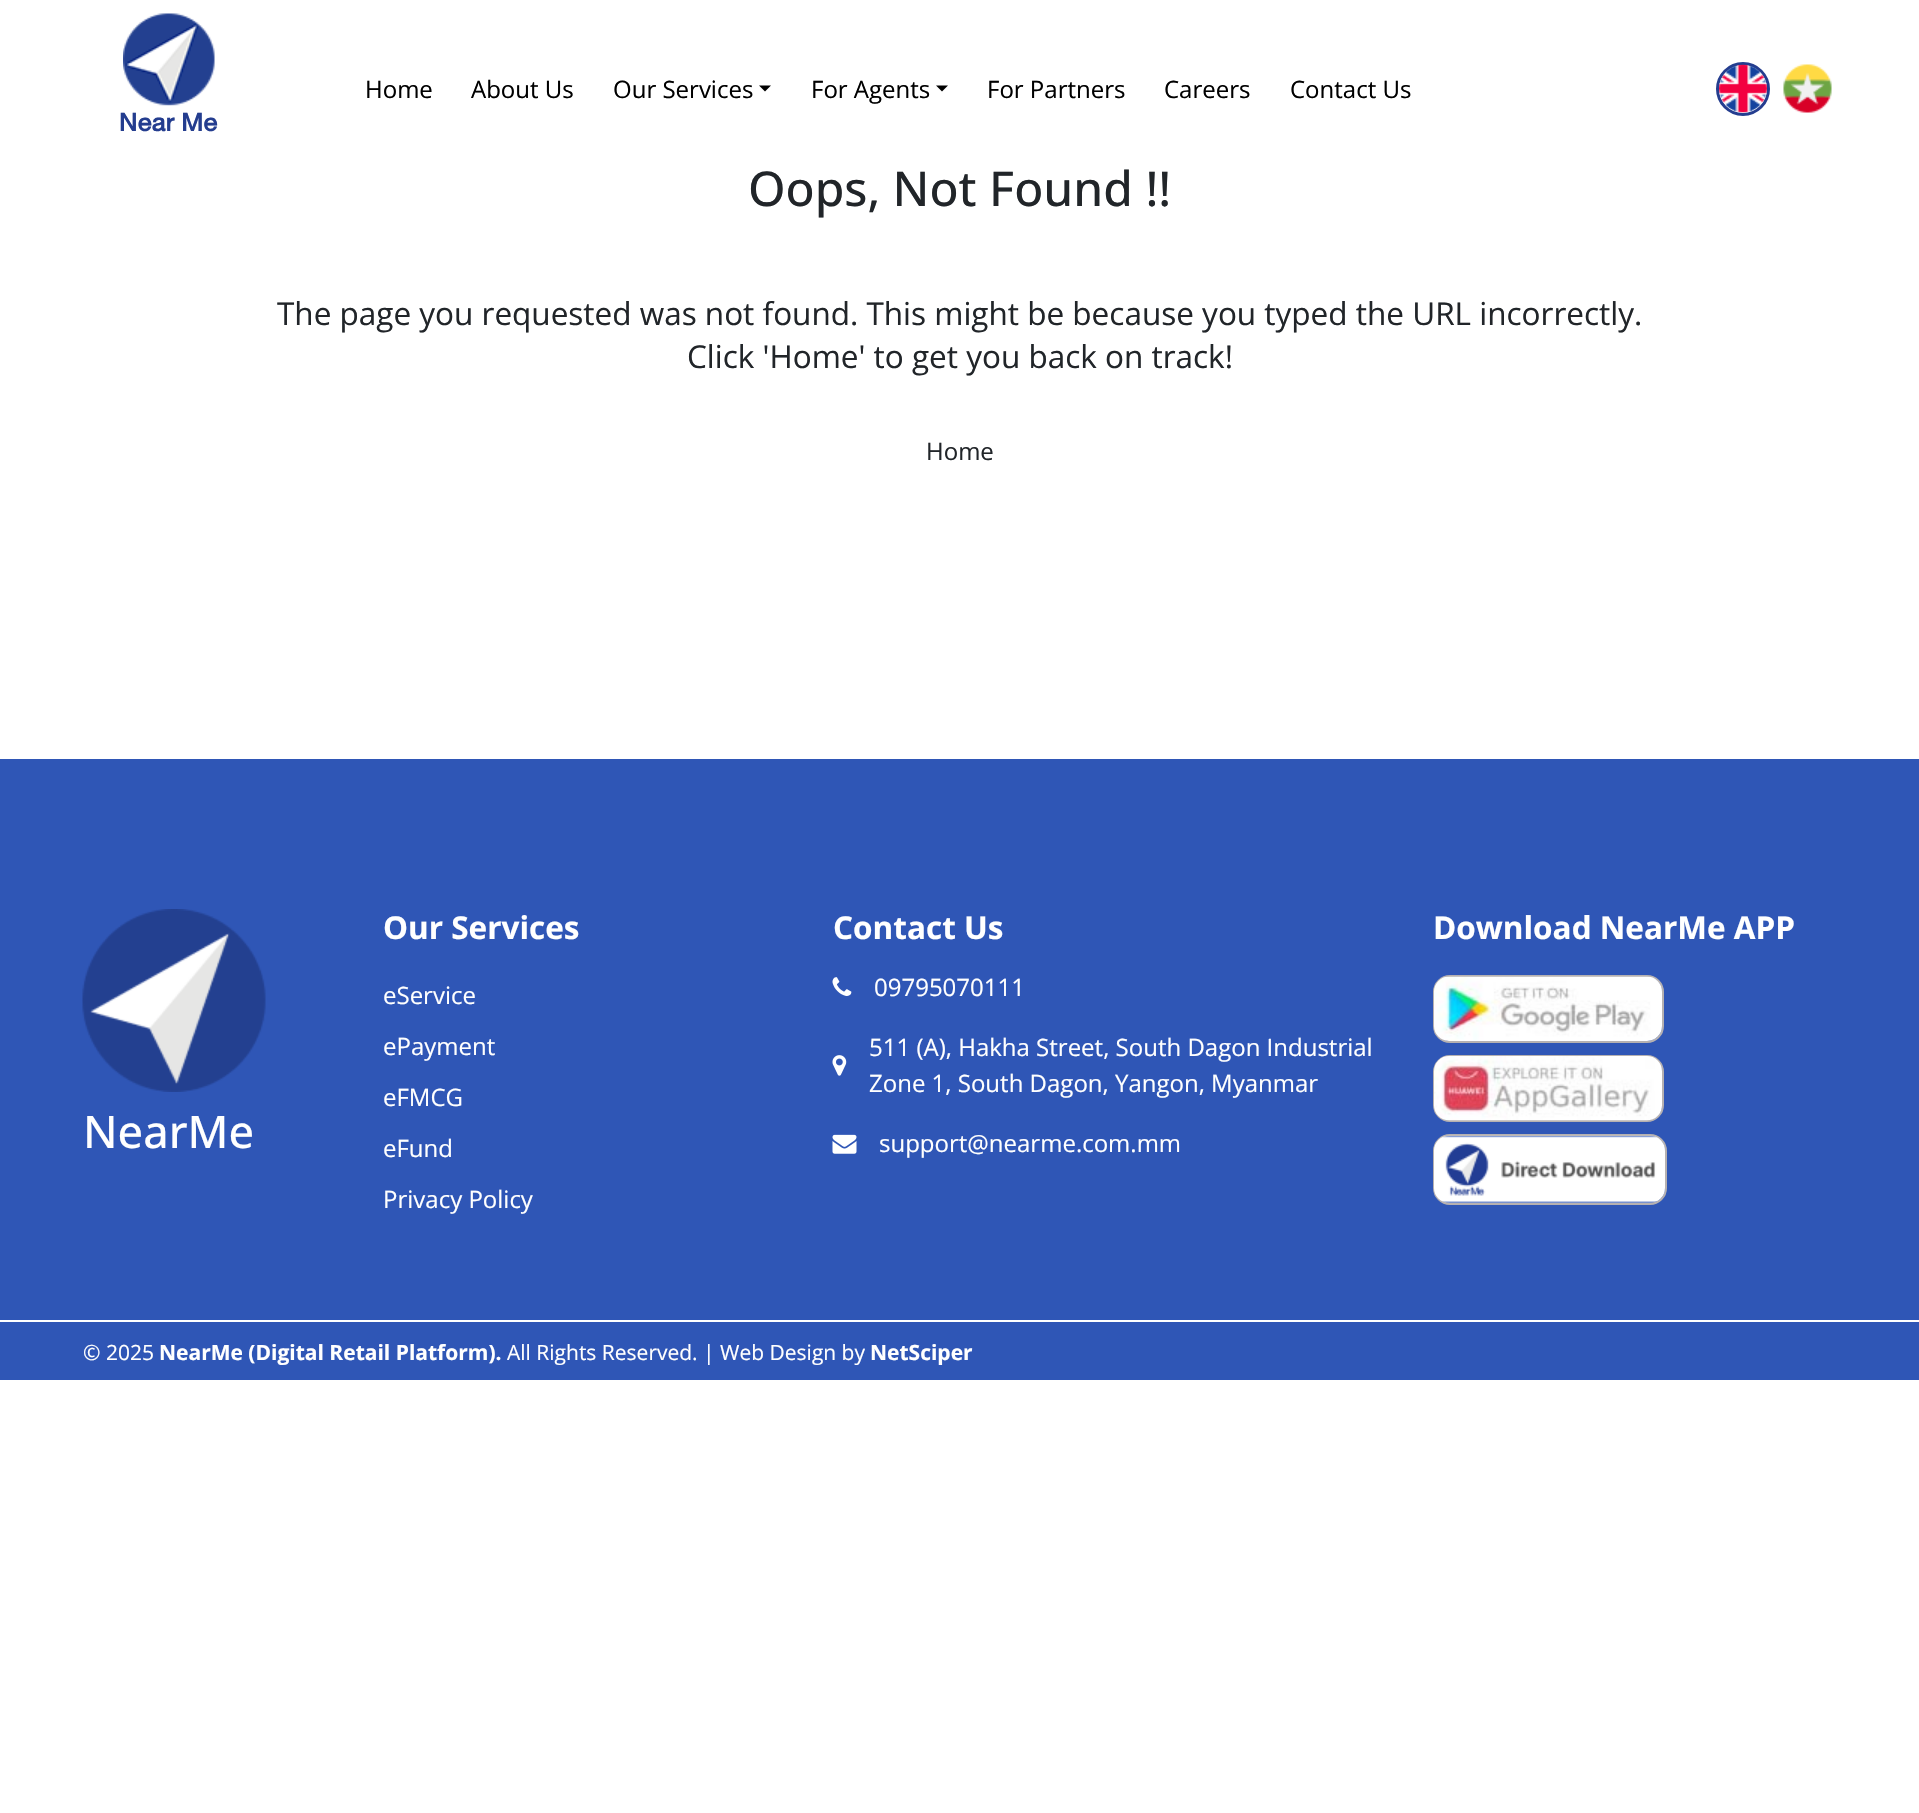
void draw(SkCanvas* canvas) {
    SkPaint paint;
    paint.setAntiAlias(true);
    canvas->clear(0xFFFFFFFF);
    SkFont font1(fontMgr->matchFamilyStyle("Open Sans", SkFontStyle::Normal()), 24);
    font1.setSubpixel(true);
    paint.setColor(0xFF000000);
    canvas->drawString("Home", 365, 98, font1, paint);
    canvas->drawString("About Us", 471, 98, font1, paint);
    canvas->drawString("Our Services", 613, 98, font1, paint);
    canvas->drawPath(SkPathBuilder().moveTo(759, 85.5f).lineTo(771, 85.5f).lineTo(765, 91.5f).close().detach(), paint);
    canvas->drawString("For Agents", 811, 98, font1, paint);
    canvas->drawPath(SkPathBuilder().moveTo(936, 85.5f).lineTo(948, 85.5f).lineTo(942, 91.5f).close().detach(), paint);
    canvas->drawString("For Partners", 987, 98, font1, paint);
    canvas->drawString("Careers", 1164, 98, font1, paint);
    canvas->drawString("Contact Us", 1290, 98, font1, paint);
    paint.setStyle(SkPaint::kStroke_Style);
    paint.setStrokeWidth(3);
    paint.setColor(0xFF243D8F);
    canvas->drawCircle(1743, 89, 25.5f, paint);
    canvas->drawImageRect(SkImages::DeferredFromEncodedData(SkData::MakeFromFileName("img1.png")), SkRect::MakeXYWH(1719, 64, 48, 49), SkSamplingOptions());
    canvas->drawImageRect(SkImages::DeferredFromEncodedData(SkData::MakeFromFileName("img2.png")), SkRect::MakeXYWH(1783, 64, 49, 49), SkSamplingOptions());
    canvas->drawImageRect(SkImages::DeferredFromEncodedData(SkData::MakeFromFileName("img3.png")), SkRect::MakeXYWH(123, 13, 92, 93), SkSamplingOptions());
    SkFont font2(fontMgr->matchFamilyStyle("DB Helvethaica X", SkFontStyle(500, SkFontStyle::kNormal_Width, SkFontStyle::kUpright_Slant)), 37.5f);
    font2.setSubpixel(true);
    paint.setStyle(SkPaint::kFill_Style);
    canvas->drawString("Near Me", 119, 131, font2, paint);
    SkFont font3(fontMgr->matchFamilyStyle("Open Sans", SkFontStyle(500, SkFontStyle::kNormal_Width, SkFontStyle::kUpright_Slant)), 48);
    font3.setSubpixel(true);
    paint.setColor(0xFF212529);
    canvas->drawString("Oops, Not Found !!", 748, 206, font3, paint);
    SkFont font4(fontMgr->matchFamilyStyle("Open Sans", SkFontStyle::Normal()), 31.5f);
    font4.setSubpixel(true);
    canvas->drawString("The page you requested was not found. This might be because you typed the URL incorrectly.", 277, 325, font4, paint);
    canvas->drawString("Click 'Home' to get you back on track!", 687, 368, font4, paint);
    canvas->drawString("Home", 926, 460, font1, paint);
    paint.setColor(0xFF2F56B6);
    canvas->drawRect(SkRect::MakeXYWH(0, 759, 1919, 621), paint);
    canvas->drawImageRect(SkImages::DeferredFromEncodedData(SkData::MakeFromFileName("img4.png")), SkRect::MakeXYWH(82, 909, 184, 183), SkSamplingOptions());
    SkFont font5(fontMgr->matchFamilyStyle("Open Sans", SkFontStyle(500, SkFontStyle::kNormal_Width, SkFontStyle::kUpright_Slant)), 45);
    font5.setSubpixel(true);
    paint.setColor(0xFFFFFFFF);
    canvas->drawString("NearMe", 83, 1148, font5, paint);
    SkFont font6(fontMgr->matchFamilyStyle("Open Sans", SkFontStyle::Bold()), 31.5f);
    font6.setSubpixel(true);
    canvas->drawString("Our Services", 383, 939, font6, paint);
    canvas->drawString("eService", 383, 1004, font1, paint);
    canvas->drawString("ePayment", 383, 1055, font1, paint);
    canvas->drawString("eFMCG", 383, 1106, font1, paint);
    canvas->drawString("eFund", 383, 1157, font1, paint);
    canvas->drawString("Privacy Policy", 383, 1208, font1, paint);
    canvas->drawString("Contact Us", 833, 939, font6, paint);
    canvas->drawImageRect(SkImages::DeferredFromEncodedData(SkData::MakeFromFileName("img5.png")), SkRect::MakeXYWH(832, 977, 20, 19), SkSamplingOptions());
    canvas->drawString("09795070111", 874, 996, font1, paint);
    canvas->drawImageRect(SkImages::DeferredFromEncodedData(SkData::MakeFromFileName("img6.png")), SkRect::MakeXYWH(832, 1055, 15, 21), SkSamplingOptions());
    canvas->drawString("511 (A), Hakha Street, South Dagon Industrial", 869, 1056, font1, paint);
    canvas->drawString("Zone 1, South Dagon, Yangon, Myanmar", 869, 1092, font1, paint);
    canvas->drawImageRect(SkImages::DeferredFromEncodedData(SkData::MakeFromFileName("img7.png")), SkRect::MakeXYWH(832, 1134, 25, 20), SkSamplingOptions());
    canvas->drawString("support@nearme.com.mm", 879, 1152, font1, paint);
    canvas->drawString("Download NearMe APP", 1433, 939, font6, paint);
    paint.setStyle(SkPaint::kStroke_Style);
    paint.setStrokeWidth(2);
    paint.setColor(0xFFB6B1B1);
    canvas->drawRoundRect(SkRect::MakeXYWH(1434, 976, 229, 66), 16, 16, paint);
    canvas->drawImageRect(SkImages::DeferredFromEncodedData(SkData::MakeFromFileName("img8.png")), SkRect::MakeXYWH(1434, 976, 228, 65), SkSamplingOptions());
    canvas->drawRoundRect(SkRect::MakeXYWH(1434, 1056, 229, 65), 16, 16, paint);
    canvas->drawImageRect(SkImages::DeferredFromEncodedData(SkData::MakeFromFileName("img9.png")), SkRect::MakeXYWH(1434, 1056, 228, 65), SkSamplingOptions());
    canvas->drawRoundRect(SkRect::MakeXYWH(1434, 1135, 232, 69), 16, 16, paint);
    canvas->drawImageRect(SkImages::DeferredFromEncodedData(SkData::MakeFromFileName("img10.png")), SkRect::MakeXYWH(1434, 1135, 231, 68), SkSamplingOptions());
    paint.setStyle(SkPaint::kFill_Style);
    paint.setColor(0xFFFFFFFF);
    canvas->drawRect(SkRect::MakeXYWH(0, 1320, 1919, 2), paint);
    SkFont font7(fontMgr->matchFamilyStyle("Open Sans", SkFontStyle::Normal()), 21);
    font7.setSubpixel(true);
    canvas->drawString("© 2025", 83, 1360, font7, paint);
    SkFont font8(fontMgr->matchFamilyStyle("Open Sans", SkFontStyle::Bold()), 21);
    font8.setSubpixel(true);
    canvas->drawString("NearMe (Digital Retail Platform).", 159, 1360, font8, paint);
    canvas->drawString("All Rights Reserved. | Web Design by", 507, 1360, font7, paint);
    canvas->drawString("NetSciper", 870, 1360, font8, paint);
}
